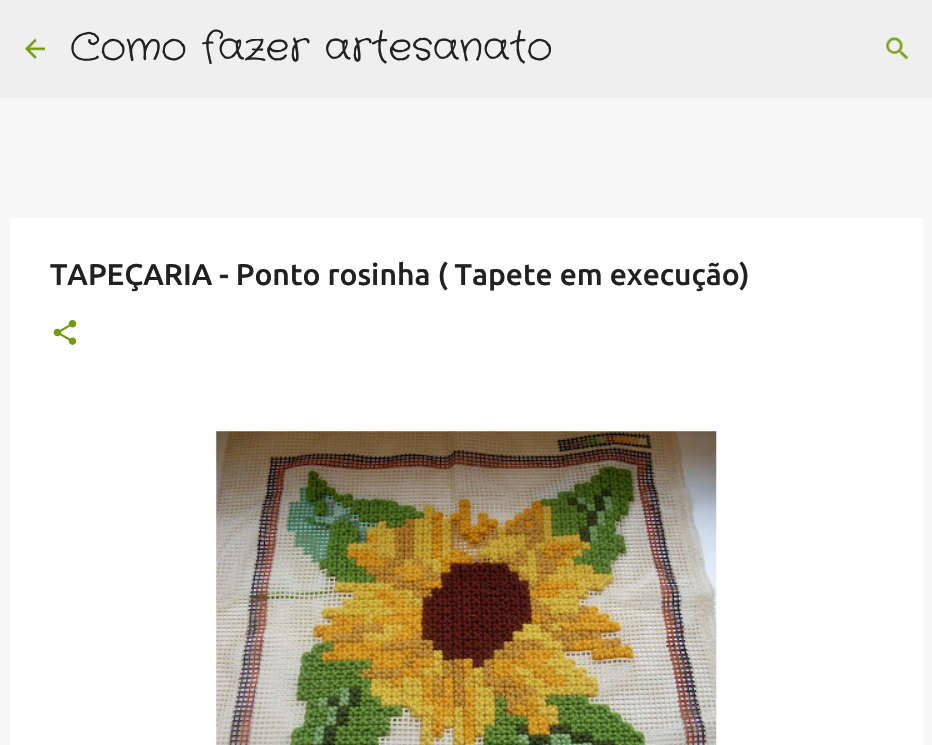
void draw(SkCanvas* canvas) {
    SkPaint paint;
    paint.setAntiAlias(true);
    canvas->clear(0xFFF7F7F7);
    paint.setColor(0xFFEFEFEF);
    canvas->drawRect(SkRect::MakeXYWH(0, 0, 932, 98), paint);
    canvas->drawImageRect(SkImages::DeferredFromEncodedData(SkData::MakeFromFileName("img1.png")), SkRect::MakeXYWH(25, 38, 20, 21), SkSamplingOptions());
    SkFont font1(fontMgr->matchFamilyStyle("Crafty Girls", SkFontStyle::Normal()), 40);
    font1.setSubpixel(true);
    paint.setColor(0xFF212121);
    canvas->drawString("Como fazer artesanato", 70, 59, font1, paint);
    canvas->drawImageRect(SkImages::DeferredFromEncodedData(SkData::MakeFromFileName("img2.png")), SkRect::MakeXYWH(885, 36, 24, 24), SkSamplingOptions());
    paint.setColor(0xFFFFFFFF);
    canvas->drawRect(SkRect::MakeXYWH(10, 218, 913, 527), paint);
    SkFont font2(fontMgr->matchFamilyStyle("Ubuntu", SkFontStyle(500, SkFontStyle::kNormal_Width, SkFontStyle::kUpright_Slant)), 30);
    font2.setSubpixel(true);
    paint.setColor(0xFF212121);
    canvas->drawString("TAPEÇARIA - Ponto rosinha ( Tapete em execução)", 50, 285, font2, paint);
    canvas->drawImageRect(SkImages::DeferredFromEncodedData(SkData::MakeFromFileName("img3.png")), SkRect::MakeXYWH(53, 320, 24, 25), SkSamplingOptions());
    canvas->drawImageRect(SkImages::DeferredFromEncodedData(SkData::MakeFromFileName("img4.png")), SkRect::MakeXYWH(216, 431, 501, 314), SkSamplingOptions());
}
